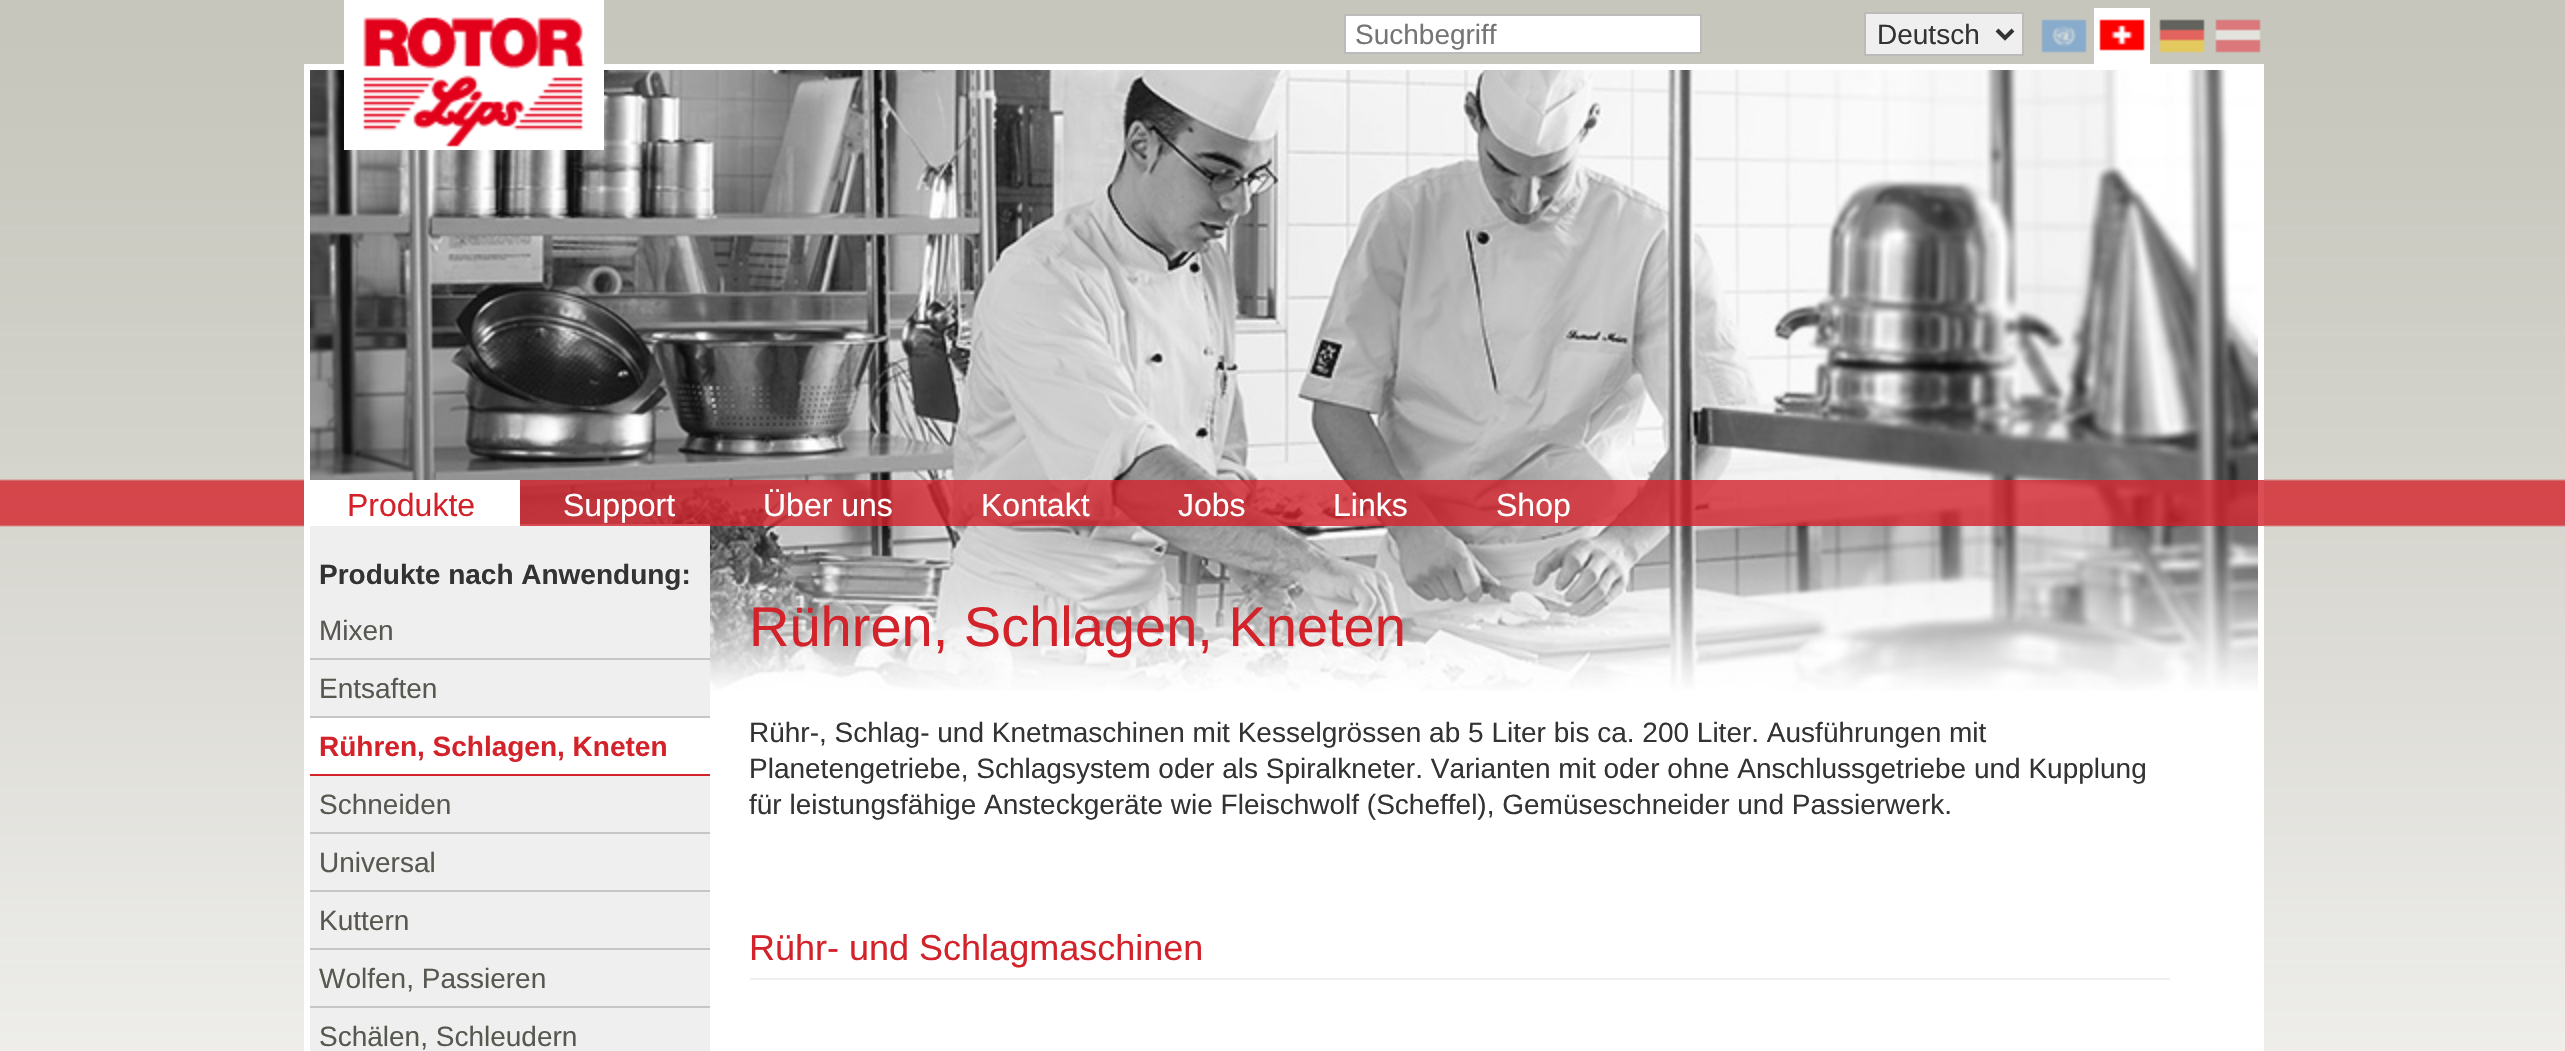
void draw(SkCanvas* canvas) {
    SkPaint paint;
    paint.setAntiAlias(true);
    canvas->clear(0xFFFFFFFF);
    canvas->drawImageRect(SkImages::DeferredFromEncodedData(SkData::MakeFromFileName("img1.png")), SkRect::MakeXYWH(0, 0, 2565, 1051), SkSamplingOptions());
    paint.setColor(0xFFFFFFFF);
    canvas->drawRect(SkRect::MakeXYWH(304, 64, 1960, 987), paint);
    canvas->drawImageRect(SkImages::DeferredFromEncodedData(SkData::MakeFromFileName("img7.png")), SkRect::MakeXYWH(310, 70, 1948, 621), SkSamplingOptions());
    canvas->drawImageRect(SkImages::DeferredFromEncodedData(SkData::MakeFromFileName("img2.png")), SkRect::MakeXYWH(344, 0, 260, 150), SkSamplingOptions());
    canvas->drawRect(SkRect::MakeXYWH(1345, 15, 356, 38), paint);
    paint.setStyle(SkPaint::kStroke_Style);
    paint.setStrokeWidth(2);
    paint.setColor(0xFFBBBBBB);
    canvas->drawRect(SkRect::MakeXYWH(1345, 15, 356, 38), paint);
    SkFont font1(fontMgr->matchFamilyStyle("Liberation Sans", SkFontStyle::Normal()), 28);
    font1.setSubpixel(true);
    paint.setStyle(SkPaint::kFill_Style);
    paint.setColor(0xFF757575);
    canvas->drawString("Suchbegriff", 1355, 44, font1, paint);
    paint.setColor(0xFFEFEFEF);
    canvas->drawRect(SkRect::MakeXYWH(1865, 13, 158, 42), paint);
    paint.setStyle(SkPaint::kStroke_Style);
    paint.setColor(0xFFBBBBBB);
    canvas->drawRect(SkRect::MakeXYWH(1865, 13, 158, 42), paint);
    paint.setStrokeWidth(4);
    paint.setColor(0xFF333333);
    canvas->drawPath(SkPathBuilder().moveTo(1997, 30).lineTo(2005, 38).lineTo(2013, 30).detach(), paint);
    paint.setStyle(SkPaint::kFill_Style);
    canvas->drawString("Deutsch", 1877, 44, font1, paint);
    canvas->drawImageRect(SkImages::DeferredFromEncodedData(SkData::MakeFromFileName("img3.png")), SkRect::MakeXYWH(2041, 19, 46, 34), SkSamplingOptions());
    paint.setColor(0xFFFFFFFF);
    canvas->drawRect(SkRect::MakeXYWH(2094, 8, 56, 56), paint);
    canvas->drawImageRect(SkImages::DeferredFromEncodedData(SkData::MakeFromFileName("img4.png")), SkRect::MakeXYWH(2099, 19, 46, 32), SkSamplingOptions());
    canvas->drawImageRect(SkImages::DeferredFromEncodedData(SkData::MakeFromFileName("img5.png")), SkRect::MakeXYWH(2159, 19, 46, 34), SkSamplingOptions());
    canvas->drawImageRect(SkImages::DeferredFromEncodedData(SkData::MakeFromFileName("img6.png")), SkRect::MakeXYWH(2215, 19, 46, 34), SkSamplingOptions());
    paint.setColor(0xFFEFEFEF);
    canvas->drawRect(SkRect::MakeXYWH(310, 524, 400, 527), paint);
    paint.setColor(0xCCD3222A);
    canvas->drawRect(SkRect::MakeXYWH(520, 480, 1744, 46), paint);
    paint.setColor(0xFFFFFFFF);
    canvas->drawRect(SkRect::MakeXYWH(310, 480, 210, 46), paint);
    SkFont font2(fontMgr->matchFamilyStyle("Liberation Sans", SkFontStyle::Normal()), 32);
    font2.setSubpixel(true);
    paint.setColor(0xFFD3222A);
    canvas->drawString("Produkte", 347, 516, font2, paint);
    paint.setColor(0xFFFFFFFF);
    canvas->drawString("Support", 563, 516, font2, paint);
    canvas->drawString("Über uns", 763, 516, font2, paint);
    canvas->drawString("Kontakt", 981, 516, font2, paint);
    canvas->drawString("Jobs", 1178, 516, font2, paint);
    canvas->drawString("Links", 1333, 516, font2, paint);
    canvas->drawString("Shop", 1496, 516, font2, paint);
    SkFont font3(fontMgr->matchFamilyStyle("Liberation Sans", SkFontStyle::Bold()), 28);
    font3.setSubpixel(true);
    paint.setColor(0xFF333333);
    canvas->drawString("Produkte nach Anwendung:", 319, 584, font3, paint);
    paint.setColor(0xFFC6C6C6);
    canvas->drawRect(SkRect::MakeXYWH(310, 658, 400, 2), paint);
    paint.setColor(0xFF575850);
    canvas->drawString("Mixen", 319, 640, font1, paint);
    paint.setColor(0xFFC6C6C6);
    canvas->drawRect(SkRect::MakeXYWH(310, 716, 400, 2), paint);
    paint.setColor(0xFF575850);
    canvas->drawString("Entsaften", 319, 698, font1, paint);
    paint.setColor(0xFFFFFFFF);
    canvas->drawRect(SkRect::MakeXYWH(310, 718, 400, 56), paint);
    paint.setColor(0xFFD3222A);
    canvas->drawRect(SkRect::MakeXYWH(310, 774, 400, 2), paint);
    canvas->drawString("Rühren, Schlagen, Kneten", 319, 756, font3, paint);
    paint.setColor(0xFFC6C6C6);
    canvas->drawRect(SkRect::MakeXYWH(310, 832, 400, 2), paint);
    paint.setColor(0xFF575850);
    canvas->drawString("Schneiden", 319, 814, font1, paint);
    paint.setColor(0xFFC6C6C6);
    canvas->drawRect(SkRect::MakeXYWH(310, 890, 400, 2), paint);
    paint.setColor(0xFF575850);
    canvas->drawString("Universal", 319, 872, font1, paint);
    paint.setColor(0xFFC6C6C6);
    canvas->drawRect(SkRect::MakeXYWH(310, 948, 400, 2), paint);
    paint.setColor(0xFF575850);
    canvas->drawString("Kuttern", 319, 930, font1, paint);
    paint.setColor(0xFFC6C6C6);
    canvas->drawRect(SkRect::MakeXYWH(310, 1006, 400, 2), paint);
    paint.setColor(0xFF575850);
    canvas->drawString("Wolfen, Passieren", 319, 988, font1, paint);
    canvas->drawString("Schälen, Schleudern", 319, 1046, font1, paint);
    SkFont font4(fontMgr->matchFamilyStyle("Liberation Sans", SkFontStyle::Normal()), 56);
    font4.setSubpixel(true);
    paint.setColor(0xFFD3222A);
    canvas->drawString("Rühren, Schlagen, Kneten", 749, 646, font4, paint);
    paint.setColor(0xFF333333);
    canvas->drawString("Rühr-, Schlag- und Knetmaschinen mit Kesselgrössen ab 5 Liter bis ca. 200 Liter. Ausführungen mit", 749, 742, font1, paint);
    canvas->drawString("Planetengetriebe, Schlagsystem oder als Spiralkneter. Varianten mit oder ohne Anschlussgetriebe und Kupplung", 749, 778, font1, paint);
    canvas->drawString("für leistungsfähige Ansteckgeräte wie Fleischwolf (Scheffel), Gemüseschneider und Passierwerk.", 749, 814, font1, paint);
    paint.setColor(0xFFEFEFEF);
    canvas->drawRect(SkRect::MakeXYWH(750, 978, 1420, 2), paint);
    SkFont font5(fontMgr->matchFamilyStyle("Liberation Sans", SkFontStyle::Normal()), 36);
    font5.setSubpixel(true);
    paint.setColor(0xFFD3222A);
    canvas->drawString("Rühr- und Schlagmaschinen", 749, 960, font5, paint);
}
